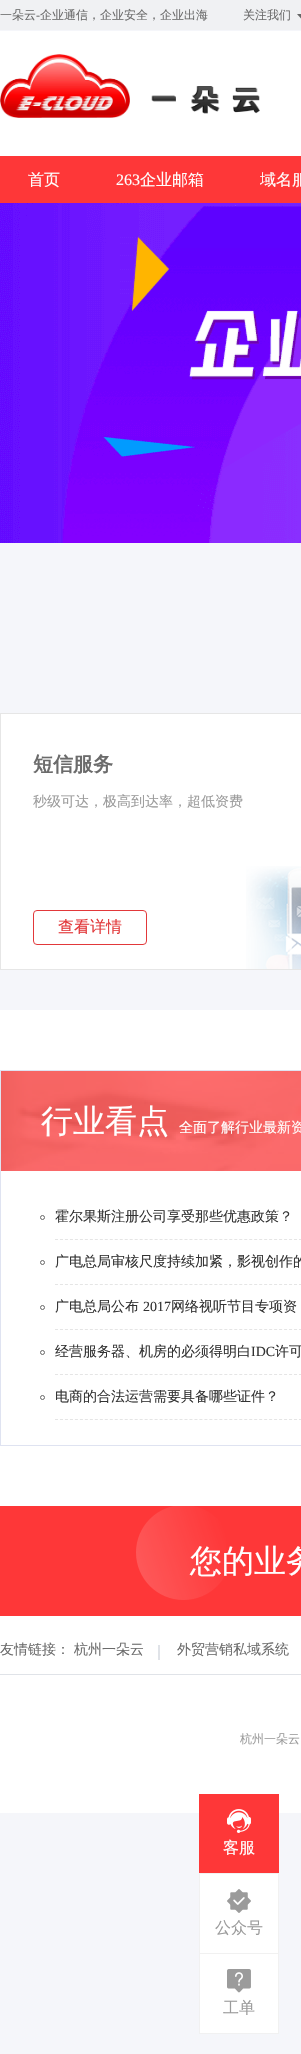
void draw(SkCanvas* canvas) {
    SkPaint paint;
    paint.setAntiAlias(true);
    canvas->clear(0xFFF5F6FA);
    paint.setColor(0xFFF0F1F3);
    canvas->drawRect(SkRect::MakeXYWH(0, 0, 301, 30), paint);
    SkFont font1(fontMgr->matchFamilyStyle("WenQuanYi Zen Hei", SkFontStyle(500, SkFontStyle::kNormal_Width, SkFontStyle::kUpright_Slant)), 12);
    font1.setSubpixel(true);
    paint.setColor(0xFF6B6B6B);
    canvas->drawString("一朵云", 0, 19, font1, paint);
    SkFont font2(fontMgr->matchFamilyStyle("Liberation Serif", SkFontStyle::Normal()), 12);
    font2.setSubpixel(true);
    canvas->drawString("-", 36, 19, font2, paint);
    canvas->drawString("企业通信，企业安全，企业出海", 40, 19, font1, paint);
    canvas->drawString("关注我们", 243, 19, font1, paint);
    paint.setColor(0xFF666666);
    canvas->drawPath(SkPathBuilder().moveTo(297, 14).lineTo(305, 14).lineTo(301, 18.5f).close().detach(), paint);
    paint.setColor(0xFFFFFFFF);
    canvas->drawRect(SkRect::MakeXYWH(0, 31, 301, 125), paint);
    canvas->drawImageRect(SkImages::DeferredFromEncodedData(SkData::MakeFromFileName("img1.png")), SkRect::MakeXYWH(0, 54, 260, 64), SkSamplingOptions());
    paint.setColor(0xFFFE3738);
    canvas->drawRect(SkRect::MakeXYWH(0, 156, 301, 47), paint);
    SkFont font3(fontMgr->matchFamilyStyle("WenQuanYi Zen Hei", SkFontStyle(500, SkFontStyle::kNormal_Width, SkFontStyle::kUpright_Slant)), 16);
    font3.setSubpixel(true);
    paint.setColor(0xFFFFFFFF);
    canvas->drawString("首页", 28, 185, font3, paint);
    SkFont font4(fontMgr->matchFamilyStyle("Liberation Serif", SkFontStyle::Normal()), 16);
    font4.setSubpixel(true);
    canvas->drawString("263", 116, 185, font4, paint);
    canvas->drawString("企业邮箱", 140, 185, font3, paint);
    canvas->drawString("域名服", 260, 185, font3, paint);
    canvas->drawImageRect(SkImages::DeferredFromEncodedData(SkData::MakeFromFileName("img2.png")), SkRect::MakeXYWH(0, 203, 301, 340), SkSamplingOptions());
    paint.setColor(0xFFE6E6E6);
    canvas->drawRect(SkRect::MakeXYWH(0, 713, 301, 1), paint);
    canvas->drawRect(SkRect::MakeXYWH(0, 713, 1, 257), paint);
    paint.setColor(0xFFFFFFFF);
    canvas->drawRect(SkRect::MakeXYWH(1, 714, 300, 255), paint);
    paint.setColor(0xFFE6E6E6);
    canvas->drawRect(SkRect::MakeXYWH(1, 969, 300, 1), paint);
    SkFont font5(fontMgr->matchFamilyStyle("WenQuanYi Zen Hei", SkFontStyle::Bold()), 20);
    font5.setSubpixel(true);
    paint.setColor(0xFF6B6B6B);
    canvas->drawString("短信服务", 33, 771, font5, paint);
    SkFont font6(fontMgr->matchFamilyStyle("WenQuanYi Zen Hei", SkFontStyle(500, SkFontStyle::kNormal_Width, SkFontStyle::kUpright_Slant)), 14);
    font6.setSubpixel(true);
    paint.setColor(0xFF9B9B9B);
    canvas->drawString("秒级可达，极高到达率，超低资费", 33, 806, font6, paint);
    paint.setStyle(SkPaint::kStroke_Style);
    paint.setStrokeWidth(1);
    paint.setColor(0xFFE2383A);
    canvas->drawRoundRect(SkRect::MakeXYWH(33.5f, 910.5f, 113, 34), 3.5f, 3.5f, paint);
    paint.setStyle(SkPaint::kFill_Style);
    canvas->drawString("查看详情", 58, 932, font3, paint);
    canvas->drawImageRect(SkImages::DeferredFromEncodedData(SkData::MakeFromFileName("img3.png")), SkRect::MakeXYWH(246, 866, 55, 103), SkSamplingOptions());
    paint.setColor(0xFFFFFFFF);
    canvas->drawRect(SkRect::MakeXYWH(0, 1010, 301, 496), paint);
    paint.setStyle(SkPaint::kStroke_Style);
    paint.setColor(0xFFDFE3F1);
    canvas->drawRect(SkRect::MakeXYWH(0.5f, 1070.5f, 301, 375), paint);
    paint.setStyle(SkPaint::kFill_Style);
    paint.setColor(0xFFFF4A4B);
    canvas->drawRect(SkRect::MakeXYWH(1, 1071, 300, 100), paint);
    canvas->drawImageRect(SkImages::DeferredFromEncodedData(SkData::MakeFromFileName("img4.png")), SkRect::MakeXYWH(1, 1071, 300, 100), SkSamplingOptions());
    SkFont font7(fontMgr->matchFamilyStyle("WenQuanYi Zen Hei", SkFontStyle(500, SkFontStyle::kNormal_Width, SkFontStyle::kUpright_Slant)), 32);
    font7.setSubpixel(true);
    paint.setColor(0xFFFFFFFF);
    canvas->drawString("行业看点", 41, 1132, font7, paint);
    canvas->drawString("全面了解行业最新资", 179, 1132, font6, paint);
    paint.setStyle(SkPaint::kStroke_Style);
    paint.setColor(0xFFE5E5E5);
    paint.setPathEffect(SkDashPathEffect::Make({{3, 1.98f}}, 0));
    canvas->drawPath(SkPathBuilder().moveTo(55, 1239.5f).lineTo(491, 1239.5f).detach(), paint);
    paint.setPathEffect(nullptr);
    paint.setColor(0xFF666666);
    canvas->drawCircle(42.5f, 1217.5f, 2, paint);
    paint.setStyle(SkPaint::kFill_Style);
    paint.setColor(0xFF333333);
    canvas->drawString("霍尔果斯注册公司享受那些优惠政策？", 55, 1221, font6, paint);
    paint.setStyle(SkPaint::kStroke_Style);
    paint.setColor(0xFFE5E5E5);
    paint.setPathEffect(SkDashPathEffect::Make({{3, 1.98f}}, 0));
    canvas->drawPath(SkPathBuilder().moveTo(55, 1284.5f).lineTo(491, 1284.5f).detach(), paint);
    paint.setPathEffect(nullptr);
    paint.setColor(0xFF666666);
    canvas->drawCircle(42.5f, 1262.5f, 2, paint);
    paint.setStyle(SkPaint::kFill_Style);
    paint.setColor(0xFF333333);
    canvas->drawString("广电总局审核尺度持续加紧，影视创作的", 55, 1266, font6, paint);
    paint.setStyle(SkPaint::kStroke_Style);
    paint.setColor(0xFFE5E5E5);
    paint.setPathEffect(SkDashPathEffect::Make({{3, 1.98f}}, 0));
    canvas->drawPath(SkPathBuilder().moveTo(55, 1329.5f).lineTo(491, 1329.5f).detach(), paint);
    paint.setPathEffect(nullptr);
    paint.setColor(0xFF666666);
    canvas->drawCircle(42.5f, 1307.5f, 2, paint);
    paint.setStyle(SkPaint::kFill_Style);
    paint.setColor(0xFF333333);
    canvas->drawString("广电总局公布", 55, 1311, font6, paint);
    SkFont font8(fontMgr->matchFamilyStyle("Liberation Serif", SkFontStyle::Normal()), 14);
    font8.setSubpixel(true);
    canvas->drawString("2017", 143, 1311, font8, paint);
    canvas->drawString("网络视听节目专项资", 171, 1311, font6, paint);
    paint.setStyle(SkPaint::kStroke_Style);
    paint.setColor(0xFFE5E5E5);
    paint.setPathEffect(SkDashPathEffect::Make({{3, 1.98f}}, 0));
    canvas->drawPath(SkPathBuilder().moveTo(55, 1374.5f).lineTo(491, 1374.5f).detach(), paint);
    paint.setPathEffect(nullptr);
    paint.setColor(0xFF666666);
    canvas->drawCircle(42.5f, 1352.5f, 2, paint);
    paint.setStyle(SkPaint::kFill_Style);
    paint.setColor(0xFF333333);
    canvas->drawString("经营服务器、机房的必须得明白", 55, 1356, font6, paint);
    canvas->drawString("IDC", 251, 1356, font8, paint);
    canvas->drawString("许可", 275, 1356, font6, paint);
    paint.setStyle(SkPaint::kStroke_Style);
    paint.setColor(0xFFE5E5E5);
    paint.setPathEffect(SkDashPathEffect::Make({{3, 1.98f}}, 0));
    canvas->drawPath(SkPathBuilder().moveTo(55, 1419.5f).lineTo(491, 1419.5f).detach(), paint);
    paint.setPathEffect(nullptr);
    paint.setColor(0xFF666666);
    canvas->drawCircle(42.5f, 1397.5f, 2, paint);
    paint.setStyle(SkPaint::kFill_Style);
    paint.setColor(0xFF333333);
    canvas->drawString("电商的合法运营需要具备哪些证件？", 55, 1401, font6, paint);
    paint.setColor(0xFFFFFFFF);
    canvas->drawRect(SkRect::MakeXYWH(0, 1616, 301, 197), paint);
    paint.setColor(0xFFFE3738);
    canvas->drawRect(SkRect::MakeXYWH(0, 1506, 301, 110), paint);
    canvas->drawImageRect(SkImages::DeferredFromEncodedData(SkData::MakeFromFileName("img5.png")), SkRect::MakeXYWH(136, 1506, 90, 94), SkSamplingOptions());
    paint.setColor(0xFFFFFFFF);
    canvas->drawString("您的业务", 190, 1572, font7, paint);
    paint.setColor(0xFFE0E3E8);
    canvas->drawRect(SkRect::MakeXYWH(0, 1674, 301, 1), paint);
    paint.setColor(0xFF6B6B6B);
    canvas->drawString("友情链接：", 0, 1654, font6, paint);
    canvas->drawString("杭州一朵云", 74, 1654, font6, paint);
    paint.setColor(0xFFE0E3E8);
    canvas->drawRect(SkRect::MakeXYWH(158, 1645, 2, 15), paint);
    paint.setColor(0xFF6B6B6B);
    canvas->drawString("外贸营销私域系统", 177, 1654, font6, paint);
    paint.setColor(0xFF9B9B9B);
    canvas->drawString("杭州一朵云", 240, 1743, font1, paint);
    paint.setColor(0xFFFE3738);
    canvas->drawRect(SkRect::MakeXYWH(199, 1794, 80, 79), paint);
    paint.setColor(0xFFF1F1F1);
    canvas->drawRect(SkRect::MakeXYWH(199, 1873, 80, 1), paint);
    canvas->drawImageRect(SkImages::DeferredFromEncodedData(SkData::MakeFromFileName("img6.png")), SkRect::MakeXYWH(227, 1809, 24, 24), SkSamplingOptions());
    paint.setColor(0xFFFFFFFF);
    canvas->drawString("客服", 223, 1853, font3, paint);
    canvas->drawRect(SkRect::MakeXYWH(200, 1874, 78, 79), paint);
    paint.setColor(0xFFF1F1F1);
    canvas->drawRect(SkRect::MakeXYWH(278, 1874, 1, 160), paint);
    canvas->drawRect(SkRect::MakeXYWH(199, 1953, 80, 1), paint);
    canvas->drawRect(SkRect::MakeXYWH(199, 1874, 1, 80), paint);
    canvas->drawImageRect(SkImages::DeferredFromEncodedData(SkData::MakeFromFileName("img7.png")), SkRect::MakeXYWH(227, 1889, 24, 24), SkSamplingOptions());
    paint.setColor(0xFF9B9B9B);
    canvas->drawString("公众号", 215, 1933, font3, paint);
    paint.setColor(0xFFFFFFFF);
    canvas->drawRect(SkRect::MakeXYWH(200, 1954, 78, 79), paint);
    paint.setColor(0xFFF1F1F1);
    canvas->drawRect(SkRect::MakeXYWH(199, 2033, 80, 1), paint);
    canvas->drawRect(SkRect::MakeXYWH(199, 1954, 1, 80), paint);
    canvas->drawImageRect(SkImages::DeferredFromEncodedData(SkData::MakeFromFileName("img8.png")), SkRect::MakeXYWH(227, 1969, 24, 24), SkSamplingOptions());
    paint.setColor(0xFF9B9B9B);
    canvas->drawString("工单", 223, 2013, font3, paint);
}
